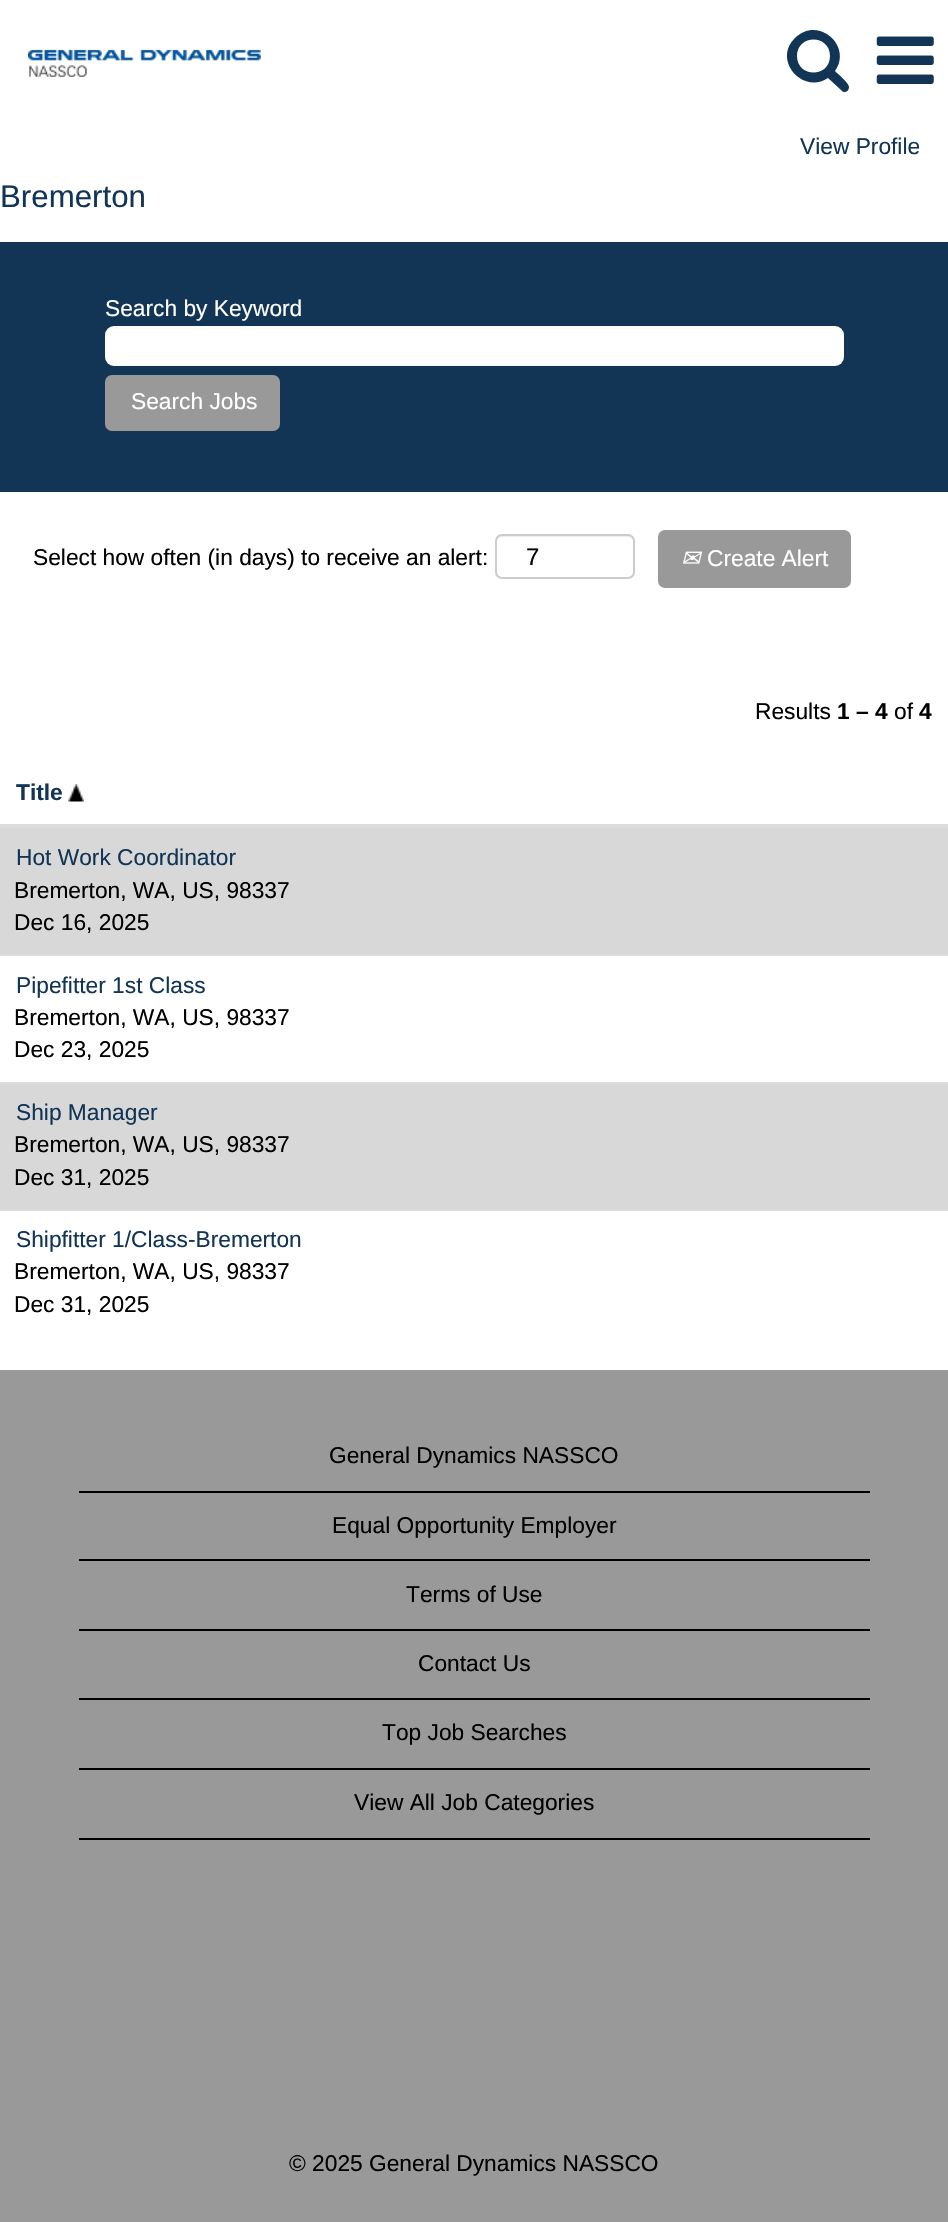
void draw(SkCanvas* canvas) {
    SkPaint paint;
    paint.setAntiAlias(true);
    canvas->clear(0xFFFFFFFF);
    canvas->drawImageRect(SkImages::DeferredFromEncodedData(SkData::MakeFromFileName("img1.png")), SkRect::MakeXYWH(28, 49, 233, 28), SkSamplingOptions());
    paint.setColor(0xFF123556);
    canvas->drawPath(SkPathBuilder().moveTo(830, 56).cubicTo(830, 78, 797, 78, 797, 56).cubicTo(797, 34, 830, 34, 830, 56).close().moveTo(849, 87).cubicTo(849, 83, 838, 74, 835, 71).cubicTo(853, 46, 818, 15, 795, 38).cubicTo(772, 60, 803, 95, 828, 78).lineTo(841, 90).cubicTo(842, 91, 843, 92, 844, 92).cubicTo(847, 92, 849, 90, 849, 87).close().detach(), paint);
    canvas->drawImageRect(SkImages::DeferredFromEncodedData(SkData::MakeFromFileName("img2.png")), SkRect::MakeXYWH(876, 36, 58, 48), SkSamplingOptions());
    SkFont font1(fontMgr->matchFamilyStyle("Liberation Sans", SkFontStyle::Normal()), 22.75f);
    font1.setSubpixel(true);
    canvas->drawString("View Profile", 800, 154, font1, paint);
    SkFont font2(fontMgr->matchFamilyStyle("Liberation Sans", SkFontStyle::Normal()), 31.25f);
    font2.setSubpixel(true);
    canvas->drawString("Bremerton", 0, 207, font2, paint);
    canvas->drawRect(SkRect::MakeXYWH(0, 242, 948, 250), paint);
    paint.setColor(0xFFFFFFFF);
    canvas->drawString("Search by Keyword", 105, 316, font1, paint);
    canvas->drawRoundRect(SkRect::MakeXYWH(105, 326, 739, 40), 9, 9, paint);
    paint.setColor(0xFF999999);
    canvas->drawRoundRect(SkRect::MakeXYWH(105, 375, 175, 56), 7, 7, paint);
    paint.setColor(0xFFFFFFFF);
    canvas->drawString("Search Jobs", 131, 409, font1, paint);
    paint.setColor(0xFF000000);
    canvas->drawString("Select how often (in days) to receive an alert:", 33, 565, font1, paint);
    paint.setColor(0xFFECECEC);
    canvas->drawPath(SkPathBuilder().moveTo(502, 537).lineTo(628, 537).cubicTo(631, 537, 634, 540, 634, 542).lineTo(634, 541).cubicTo(634, 538, 632, 536, 629, 536).lineTo(502, 536).cubicTo(499, 536, 497, 538, 497, 541).lineTo(497, 542).cubicTo(497, 540, 499, 537, 502, 537).close().detach(), paint);
    paint.setStyle(SkPaint::kStroke_Style);
    paint.setStrokeWidth(2);
    paint.setColor(0xFFCCCCCC);
    canvas->drawRoundRect(SkRect::MakeXYWH(496, 535, 138, 43), 6, 6, paint);
    SkFont font3(fontMgr->matchFamilyStyle("Liberation Sans", SkFontStyle::Normal()), 24);
    font3.setSubpixel(true);
    paint.setStyle(SkPaint::kFill_Style);
    paint.setColor(0xFF000000);
    canvas->drawString("7", 526, 565, font3, paint);
    paint.setColor(0xFF999999);
    canvas->drawRoundRect(SkRect::MakeXYWH(658, 530, 193, 58), 7, 7, paint);
    SkFont font4(fontMgr->matchFamilyStyle("DejaVu Sans", SkFontStyle::Italic()), 22.75f);
    font4.setSubpixel(true);
    paint.setColor(0xFFFFFFFF);
    canvas->drawString("✉", 681, 566, font4, paint);
    canvas->drawString("Create Alert", 707, 566, font1, paint);
    paint.setColor(0xFF000000);
    canvas->drawString("Results", 755, 719, font1, paint);
    SkFont font5(fontMgr->matchFamilyStyle("Liberation Sans", SkFontStyle::Bold()), 22.75f);
    font5.setSubpixel(true);
    canvas->drawString("1 – 4", 837, 719, font5, paint);
    canvas->drawString("of", 894, 719, font1, paint);
    canvas->drawString("4", 919, 719, font5, paint);
    paint.setColor(0xFFDDDDDD);
    canvas->drawRect(SkRect::MakeXYWH(0, 824, 948, 4), paint);
    paint.setColor(0xFF123556);
    canvas->drawString("Title", 16, 800, font5, paint);
    canvas->drawImageRect(SkImages::DeferredFromEncodedData(SkData::MakeFromFileName("img3.png")), SkRect::MakeXYWH(68, 784, 16, 18), SkSamplingOptions());
    paint.setColor(0xFFD8D8D8);
    canvas->drawRect(SkRect::MakeXYWH(0, 828, 948, 126), paint);
    paint.setColor(0xFF123556);
    canvas->drawString("Hot Work Coordinator", 16, 865, font1, paint);
    paint.setColor(0xFF000000);
    canvas->drawString("Bremerton, WA, US, 98337", 14, 898, font1, paint);
    canvas->drawString("Dec 16, 2025", 14, 930, font1, paint);
    paint.setColor(0xFFDDDDDD);
    canvas->drawRect(SkRect::MakeXYWH(0, 954, 948, 2), paint);
    paint.setColor(0xFF123556);
    canvas->drawString("Pipefitter 1st Class", 16, 993, font1, paint);
    paint.setColor(0xFF000000);
    canvas->drawString("Bremerton, WA, US, 98337", 14, 1025, font1, paint);
    canvas->drawString("Dec 23, 2025", 14, 1057, font1, paint);
    paint.setColor(0xFFD8D8D8);
    canvas->drawRect(SkRect::MakeXYWH(0, 1084, 948, 125), paint);
    paint.setColor(0xFFDDDDDD);
    canvas->drawRect(SkRect::MakeXYWH(0, 1082, 948, 2), paint);
    paint.setColor(0xFF123556);
    canvas->drawString("Ship Manager", 16, 1120, font1, paint);
    paint.setColor(0xFF000000);
    canvas->drawString("Bremerton, WA, US, 98337", 14, 1152, font1, paint);
    canvas->drawString("Dec 31, 2025", 14, 1185, font1, paint);
    paint.setColor(0xFFDDDDDD);
    canvas->drawRect(SkRect::MakeXYWH(0, 1209, 948, 2), paint);
    paint.setColor(0xFF123556);
    canvas->drawString("Shipfitter 1/Class-Bremerton", 16, 1247, font1, paint);
    paint.setColor(0xFF000000);
    canvas->drawString("Bremerton, WA, US, 98337", 14, 1279, font1, paint);
    canvas->drawString("Dec 31, 2025", 14, 1312, font1, paint);
    paint.setColor(0xFF999999);
    canvas->drawRect(SkRect::MakeXYWH(0, 1370, 948, 852), paint);
    paint.setColor(0xFF000000);
    canvas->drawRect(SkRect::MakeXYWH(79, 1491, 791, 2), paint);
    canvas->drawString("General Dynamics NASSCO", 329, 1463, font1, paint);
    canvas->drawRect(SkRect::MakeXYWH(79, 1559, 791, 2), paint);
    canvas->drawString("Equal Opportunity Employer", 332, 1533, font1, paint);
    canvas->drawRect(SkRect::MakeXYWH(79, 1629, 791, 2), paint);
    canvas->drawString("Terms of Use", 406, 1602, font1, paint);
    canvas->drawRect(SkRect::MakeXYWH(79, 1698, 791, 2), paint);
    canvas->drawString("Contact Us", 418, 1671, font1, paint);
    canvas->drawRect(SkRect::MakeXYWH(79, 1768, 791, 2), paint);
    canvas->drawString("Top Job Searches", 382, 1740, font1, paint);
    canvas->drawRect(SkRect::MakeXYWH(79, 1838, 791, 2), paint);
    canvas->drawString("View All Job Categories", 354, 1810, font1, paint);
    canvas->drawString("© 2025 General Dynamics NASSCO", 289, 2171, font1, paint);
}
